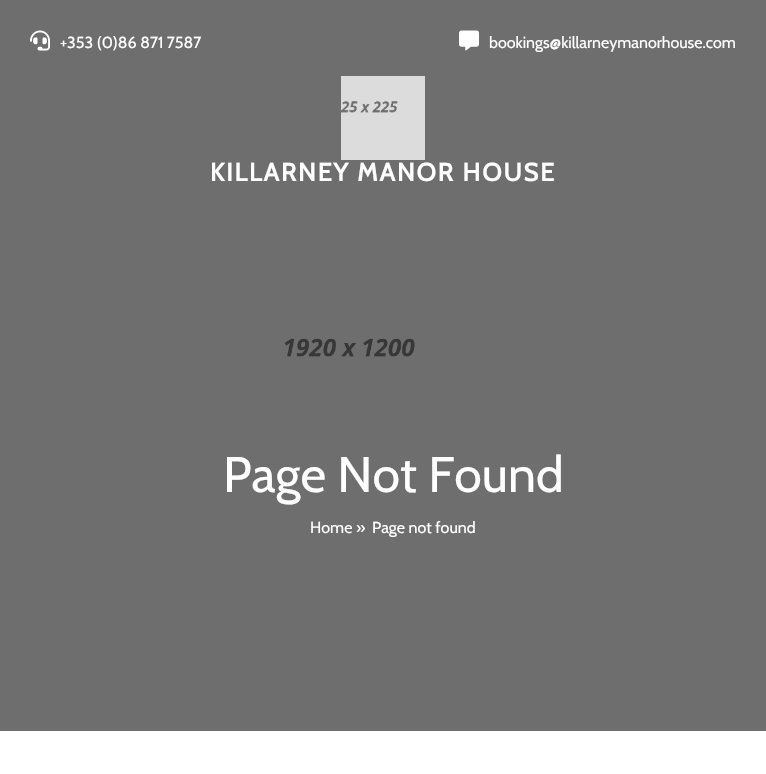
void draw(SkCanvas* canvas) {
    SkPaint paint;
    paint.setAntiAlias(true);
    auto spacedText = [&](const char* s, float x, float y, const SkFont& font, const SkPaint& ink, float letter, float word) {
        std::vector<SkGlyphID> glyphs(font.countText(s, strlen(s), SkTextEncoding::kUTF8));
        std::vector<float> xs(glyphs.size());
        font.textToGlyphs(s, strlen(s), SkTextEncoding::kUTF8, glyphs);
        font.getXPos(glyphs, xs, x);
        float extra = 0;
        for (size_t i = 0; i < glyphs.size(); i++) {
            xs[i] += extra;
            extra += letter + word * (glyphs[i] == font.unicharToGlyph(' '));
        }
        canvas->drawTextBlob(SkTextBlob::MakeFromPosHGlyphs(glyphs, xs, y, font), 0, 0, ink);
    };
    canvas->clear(0xFFFFFFFF);
    canvas->drawImageRect(SkImages::DeferredFromEncodedData(SkData::MakeFromFileName("img1.png")), SkRect::MakeXYWH(0, 0, 766, 731), SkSamplingOptions());
    canvas->drawImageRect(SkImages::DeferredFromEncodedData(SkData::MakeFromFileName("img2.png")), SkRect::MakeXYWH(30, 30, 20, 21), SkSamplingOptions());
    SkFont font1(fontMgr->matchFamilyStyle("Cabin", SkFontStyle::Normal()), 16);
    font1.setSubpixel(true);
    paint.setColor(0xFFFFFFFF);
    canvas->drawString("+353 (0)86 871 7587", 60, 48, font1, paint);
    canvas->drawImageRect(SkImages::DeferredFromEncodedData(SkData::MakeFromFileName("img3.png")), SkRect::MakeXYWH(459, 30, 20, 21), SkSamplingOptions());
    canvas->drawString("bookings@killarneymanorhouse.com", 489, 48, font1, paint);
    canvas->drawImageRect(SkImages::DeferredFromEncodedData(SkData::MakeFromFileName("img4.png")), SkRect::MakeXYWH(341, 76, 84, 84), SkSamplingOptions());
    SkFont font2(fontMgr->matchFamilyStyle("Cabin", SkFontStyle::Bold()), 25);
    font2.setSubpixel(true);
    spacedText("KILLARNEY MANOR HOUSE", 210, 181, font2, paint, 2, 0);
    SkFont font3(fontMgr->matchFamilyStyle("Cabin", SkFontStyle::Normal()), 50);
    font3.setSubpixel(true);
    canvas->drawString("Page Not Found", 223, 492, font3, paint);
    canvas->drawString("Home »", 310, 533, font1, paint);
    canvas->drawString("Page not found", 372, 533, font1, paint);
}
